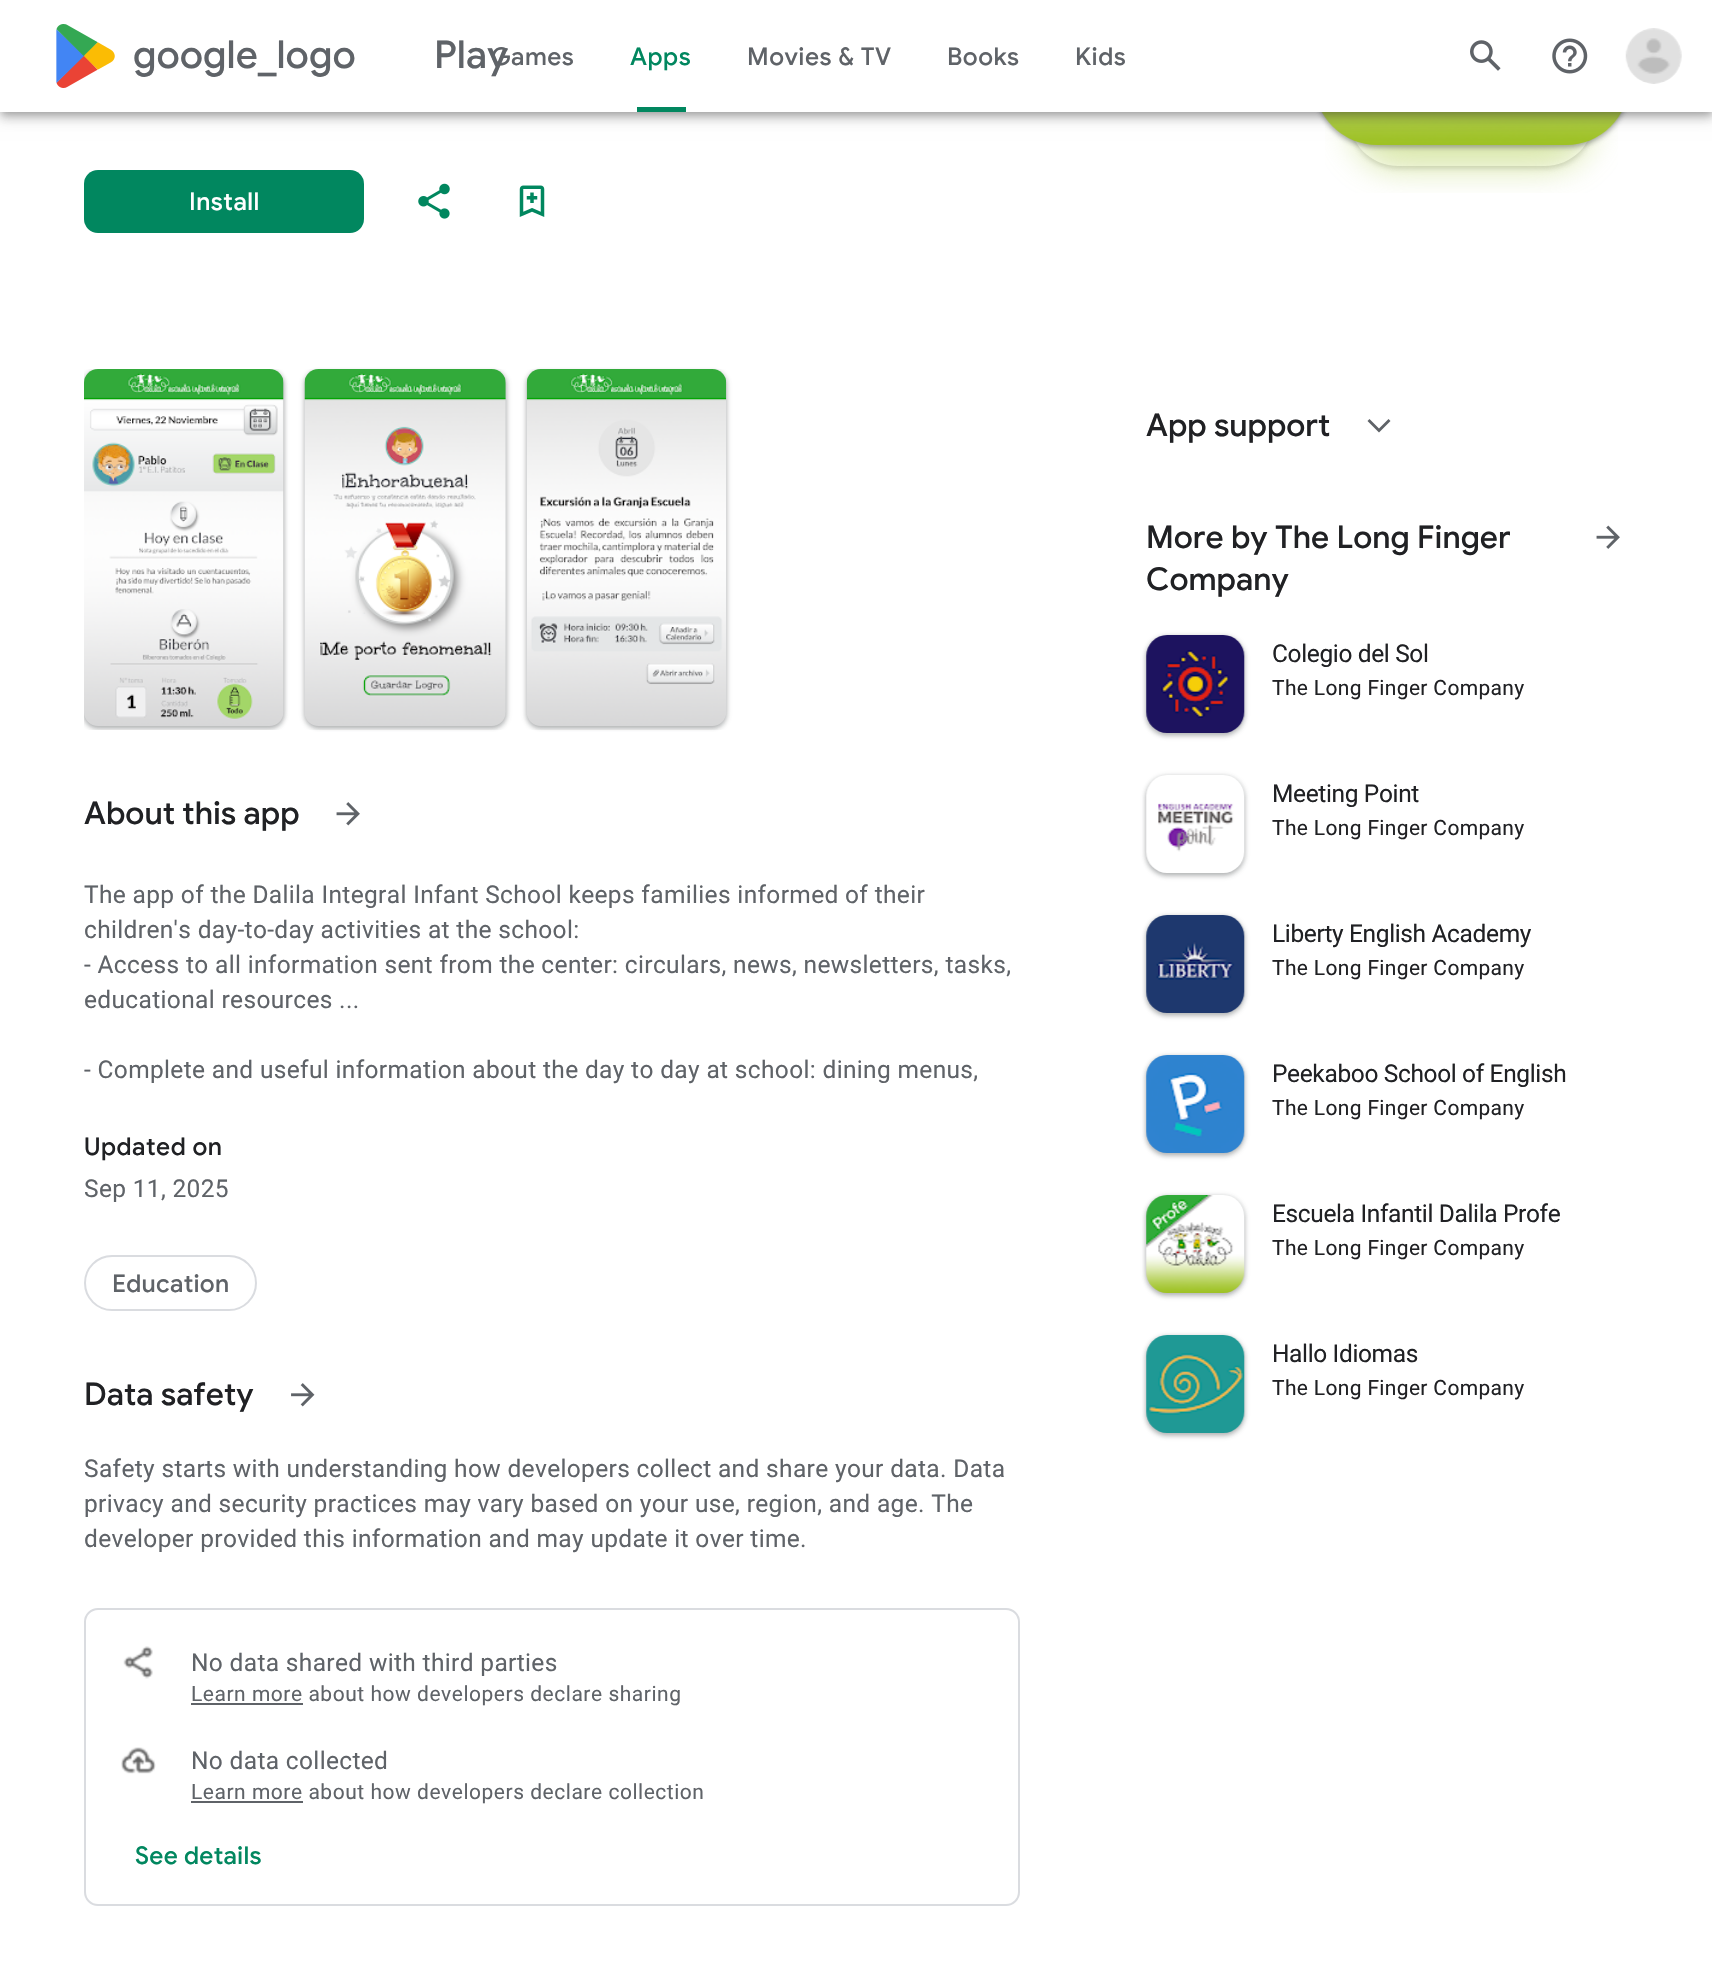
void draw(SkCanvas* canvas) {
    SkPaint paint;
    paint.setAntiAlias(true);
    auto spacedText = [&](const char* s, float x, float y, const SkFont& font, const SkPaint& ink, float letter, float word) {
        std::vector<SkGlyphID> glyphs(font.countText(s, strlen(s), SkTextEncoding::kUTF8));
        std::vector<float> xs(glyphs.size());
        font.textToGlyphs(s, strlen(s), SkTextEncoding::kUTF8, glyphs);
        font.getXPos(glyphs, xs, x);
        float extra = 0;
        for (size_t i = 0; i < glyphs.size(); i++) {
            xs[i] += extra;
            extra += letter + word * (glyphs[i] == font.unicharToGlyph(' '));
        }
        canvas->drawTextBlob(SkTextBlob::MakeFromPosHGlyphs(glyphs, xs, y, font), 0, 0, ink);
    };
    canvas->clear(0xFFFFFFFF);
    canvas->save();
    canvas->clipPath(SkPathBuilder(SkPathFillType::kEvenOdd).moveTo(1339, 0).lineTo(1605, 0).lineTo(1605, 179).lineTo(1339, 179).close().moveTo(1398, -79).lineTo(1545, -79).cubicTo(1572, -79, 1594, -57, 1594, -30).lineTo(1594, 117).cubicTo(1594, 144, 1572, 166, 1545, 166).lineTo(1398, 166).cubicTo(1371, 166, 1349, 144, 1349, 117).lineTo(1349, -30).cubicTo(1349, -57, 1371, -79, 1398, -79).close().detach(), true);
    paint.setColor(0x269EA0A1);
    paint.setMaskFilter(SkMaskFilter::MakeBlur(kNormal_SkBlurStyle, 2.5f));
    canvas->drawRoundRect(SkRect::MakeXYWH(1348, -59, 248, 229), 51, 51, paint);
    paint.setMaskFilter(nullptr);
    canvas->restore();
    canvas->save();
    canvas->clipPath(SkPathBuilder(SkPathFillType::kEvenOdd).moveTo(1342, 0).lineTo(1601, 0).lineTo(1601, 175).lineTo(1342, 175).close().moveTo(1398, -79).lineTo(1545, -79).cubicTo(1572, -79, 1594, -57, 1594, -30).lineTo(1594, 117).cubicTo(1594, 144, 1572, 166, 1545, 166).lineTo(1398, 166).cubicTo(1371, 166, 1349, 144, 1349, 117).lineTo(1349, -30).cubicTo(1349, -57, 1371, -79, 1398, -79).close().detach(), true);
    paint.setColor(0x4D9EA0A1);
    paint.setMaskFilter(SkMaskFilter::MakeBlur(kNormal_SkBlurStyle, 2));
    canvas->drawRoundRect(SkRect::MakeXYWH(1349, -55, 245, 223), 49, 49, paint);
    paint.setMaskFilter(nullptr);
    canvas->restore();
    canvas->drawImageRect(SkImages::DeferredFromEncodedData(SkData::MakeFromFileName("img5.png")), SkRect::MakeXYWH(1325, 116, 293, 77), SkSamplingOptions());
    paint.setColor(0x263C4043);
    paint.setMaskFilter(SkMaskFilter::MakeBlur(kNormal_SkBlurStyle, 2.5f));
    canvas->drawRoundRect(SkRect::MakeXYWH(1313, -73, 318, 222), 65, 65, paint);
    paint.setMaskFilter(nullptr);
    paint.setColor(0x4D3C4043);
    paint.setMaskFilter(SkMaskFilter::MakeBlur(kNormal_SkBlurStyle, 2));
    canvas->drawRoundRect(SkRect::MakeXYWH(1314, -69, 315, 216), 63, 63, paint);
    paint.setMaskFilter(nullptr);
    canvas->drawImageRect(SkImages::DeferredFromEncodedData(SkData::MakeFromFileName("img6.png")), SkRect::MakeXYWH(1321, 112, 302, 33), SkSamplingOptions());
    paint.setColor(0x33000000);
    paint.setMaskFilter(SkMaskFilter::MakeBlur(kNormal_SkBlurStyle, 3.5f));
    canvas->drawRect(SkRect::MakeXYWH(2, 5, 1710, 109), paint);
    paint.setMaskFilter(nullptr);
    paint.setColor(0x1F000000);
    paint.setMaskFilter(SkMaskFilter::MakeBlur(kNormal_SkBlurStyle, 9));
    canvas->drawRect(SkRect::MakeXYWH(0, 2, 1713, 112), paint);
    paint.setMaskFilter(nullptr);
    paint.setColor(0x24000000);
    paint.setMaskFilter(SkMaskFilter::MakeBlur(kNormal_SkBlurStyle, 4.5f));
    canvas->drawRect(SkRect::MakeXYWH(0, 7, 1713, 112), paint);
    paint.setMaskFilter(nullptr);
    paint.setColor(0xFFFFFFFF);
    canvas->drawRect(SkRect::MakeXYWH(0, 0, 1712, 112), paint);
    canvas->drawImageRect(SkImages::DeferredFromEncodedData(SkData::MakeFromFileName("img1.png")), SkRect::MakeXYWH(56, 24, 59, 64), SkSamplingOptions());
    SkFont font1(fontMgr->matchFamilyStyle("Google Sans", SkFontStyle(500, SkFontStyle::kNormal_Width, SkFontStyle::kUpright_Slant)), 38.5f);
    font1.setSubpixel(true);
    paint.setColor(0xFF5F6368);
    spacedText("google_logo", 133, 68, font1, paint, 0, 96);
    spacedText("Play", 434, 68, font1, paint, 0, 96);
    SkFont font2(fontMgr->matchFamilyStyle("Google Sans", SkFontStyle(500, SkFontStyle::kNormal_Width, SkFontStyle::kUpright_Slant)), 24.5f);
    font2.setSubpixel(true);
    spacedText("Games", 491, 65, font2, paint, 0.5f, 0);
    paint.setColor(0xFF01875F);
    spacedText("Apps", 630, 65, font2, paint, 0.5f, 0);
    canvas->drawRect(SkRect::MakeXYWH(637, 107, 49, 5), paint);
    paint.setColor(0xFF5F6368);
    spacedText("Movies & TV", 747, 65, font2, paint, 0.5f, 0);
    spacedText("Books", 947, 65, font2, paint, 0.5f, 0);
    spacedText("Kids", 1075, 65, font2, paint, 0.5f, 0);
    canvas->drawImageRect(SkImages::DeferredFromEncodedData(SkData::MakeFromFileName("img2.png")), SkRect::MakeXYWH(1470, 40, 31, 31), SkSamplingOptions());
    canvas->drawImageRect(SkImages::DeferredFromEncodedData(SkData::MakeFromFileName("img3.png")), SkRect::MakeXYWH(1552, 38, 36, 36), SkSamplingOptions());
    canvas->drawImageRect(SkImages::DeferredFromEncodedData(SkData::MakeFromFileName("img4.png")), SkRect::MakeXYWH(1625, 28, 57, 56), SkSamplingOptions());
    paint.setColor(0xFF01875F);
    canvas->drawRoundRect(SkRect::MakeXYWH(84, 170, 280, 63), 14, 14, paint);
    paint.setColor(0xFFFFFFFF);
    spacedText("Install", 189, 210, font2, paint, 0.5f, 0);
    canvas->drawImageRect(SkImages::DeferredFromEncodedData(SkData::MakeFromFileName("img7.png")), SkRect::MakeXYWH(418, 183, 32, 36), SkSamplingOptions());
    canvas->drawImageRect(SkImages::DeferredFromEncodedData(SkData::MakeFromFileName("img8.png")), SkRect::MakeXYWH(519, 185, 26, 32), SkSamplingOptions());
    canvas->save();
    canvas->clipRect(SkRect::MakeXYWH(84, 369, 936, 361));
    paint.setColor(0x263C4043);
    paint.setMaskFilter(SkMaskFilter::MakeBlur(kNormal_SkBlurStyle, 2.5f));
    canvas->drawRoundRect(SkRect::MakeXYWH(82, 369, 203, 361), 16, 16, paint);
    paint.setMaskFilter(nullptr);
    paint.setColor(0x4D3C4043);
    paint.setMaskFilter(SkMaskFilter::MakeBlur(kNormal_SkBlurStyle, 2));
    canvas->drawRoundRect(SkRect::MakeXYWH(84, 371, 200, 357), 14, 14, paint);
    paint.setMaskFilter(nullptr);
    canvas->restore();
    canvas->drawImageRect(SkImages::DeferredFromEncodedData(SkData::MakeFromFileName("img9.png")), SkRect::MakeXYWH(84, 369, 200, 357), SkSamplingOptions());
    canvas->save();
    canvas->clipRect(SkRect::MakeXYWH(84, 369, 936, 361));
    paint.setColor(0x263C4043);
    paint.setMaskFilter(SkMaskFilter::MakeBlur(kNormal_SkBlurStyle, 2.5f));
    canvas->drawRoundRect(SkRect::MakeXYWH(303, 369, 205, 361), 16, 16, paint);
    paint.setMaskFilter(nullptr);
    canvas->restore();
    paint.setColor(0x4D3C4043);
    paint.setMaskFilter(SkMaskFilter::MakeBlur(kNormal_SkBlurStyle, 2));
    canvas->drawRoundRect(SkRect::MakeXYWH(305, 371, 201, 357), 14, 14, paint);
    paint.setMaskFilter(nullptr);
    canvas->drawImageRect(SkImages::DeferredFromEncodedData(SkData::MakeFromFileName("img10.png")), SkRect::MakeXYWH(304, 369, 202, 357), SkSamplingOptions());
    canvas->save();
    canvas->clipRect(SkRect::MakeXYWH(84, 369, 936, 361));
    paint.setColor(0x263C4043);
    paint.setMaskFilter(SkMaskFilter::MakeBlur(kNormal_SkBlurStyle, 2.5f));
    canvas->drawRoundRect(SkRect::MakeXYWH(525, 369, 203, 361), 16, 16, paint);
    paint.setMaskFilter(nullptr);
    canvas->restore();
    paint.setColor(0x4D3C4043);
    paint.setMaskFilter(SkMaskFilter::MakeBlur(kNormal_SkBlurStyle, 2));
    canvas->drawRoundRect(SkRect::MakeXYWH(527, 371, 199, 357), 14, 14, paint);
    paint.setMaskFilter(nullptr);
    canvas->drawImageRect(SkImages::DeferredFromEncodedData(SkData::MakeFromFileName("img11.png")), SkRect::MakeXYWH(526, 369, 201, 357), SkSamplingOptions());
    SkFont font3(fontMgr->matchFamilyStyle("Google Sans", SkFontStyle(500, SkFontStyle::kNormal_Width, SkFontStyle::kUpright_Slant)), 31.5f);
    font3.setSubpixel(true);
    paint.setColor(0xFF202124);
    canvas->drawString("About this app", 84, 824, font3, paint);
    canvas->drawImageRect(SkImages::DeferredFromEncodedData(SkData::MakeFromFileName("img12.png")), SkRect::MakeXYWH(336, 802, 24, 24), SkSamplingOptions());
    SkFont font4(fontMgr->matchFamilyStyle("Roboto", SkFontStyle::Normal()), 24.5f);
    font4.setSubpixel(true);
    paint.setColor(0xFF5F6368);
    spacedText("The app of the Dalila Integral Infant School keeps families informed of their", 84, 903, font4, paint, 0.35f, 0);
    spacedText("children's day-to-day activities at the school:", 84, 938, font4, paint, 0.35f, 0);
    spacedText("- Access to all information sent from the center: circulars, news, newsletters, tasks,", 84, 973, font4, paint, 0.35f, 0);
    spacedText("educational resources ...", 84, 1008, font4, paint, 0.35f, 0);
    spacedText("- Complete and useful information about the day to day at school: dining menus,", 84, 1078, font4, paint, 0.35f, 0);
    paint.setColor(0xFF202124);
    spacedText("Updated on", 84, 1155, font2, paint, 0.5f, 0);
    paint.setColor(0xFF5F6368);
    spacedText("Sep 11, 2025", 84, 1197, font4, paint, 0.35f, 0);
    paint.setStyle(SkPaint::kStroke_Style);
    paint.setStrokeWidth(2);
    paint.setColor(0xFFDADCE0);
    canvas->drawRoundRect(SkRect::MakeXYWH(85, 1256, 171, 54), 27, 27, paint);
    paint.setStyle(SkPaint::kFill_Style);
    paint.setColor(0xFF5F6368);
    spacedText("Education", 112, 1292, font2, paint, 0.25f, 0);
    paint.setColor(0xFF202124);
    canvas->drawString("Data safety", 84, 1405, font3, paint);
    canvas->drawImageRect(SkImages::DeferredFromEncodedData(SkData::MakeFromFileName("img13.png")), SkRect::MakeXYWH(291, 1383, 24, 24), SkSamplingOptions());
    paint.setColor(0xFF5F6368);
    spacedText("Safety starts with understanding how developers collect and share your data. Data", 84, 1477, font4, paint, 0.35f, 0);
    spacedText("privacy and security practices may vary based on your use, region, and age. The", 84, 1512, font4, paint, 0.35f, 0);
    spacedText("developer provided this information and may update it over time.", 84, 1547, font4, paint, 0.35f, 0);
    paint.setStyle(SkPaint::kStroke_Style);
    paint.setColor(0xFFDADCE0);
    canvas->drawRoundRect(SkRect::MakeXYWH(85, 1609, 934, 296), 13, 13, paint);
    canvas->drawImageRect(SkImages::DeferredFromEncodedData(SkData::MakeFromFileName("img14.png")), SkRect::MakeXYWH(123, 1646, 30, 33), SkSamplingOptions());
    paint.setStyle(SkPaint::kFill_Style);
    paint.setColor(0xFF5F6368);
    spacedText("No data shared with third parties", 191, 1671, font4, paint, 0.35f, 0);
    canvas->drawRect(SkRect::MakeXYWH(191, 1703, 112, 2), paint);
    SkFont font5(fontMgr->matchFamilyStyle("Roboto", SkFontStyle::Normal()), 21);
    font5.setSubpixel(true);
    spacedText("Learn more about how developers declare sharing", 191, 1701, font5, paint, 0.53f, 0);
    canvas->drawImageRect(SkImages::DeferredFromEncodedData(SkData::MakeFromFileName("img15.png")), SkRect::MakeXYWH(121, 1747, 35, 27), SkSamplingOptions());
    spacedText("No data collected", 191, 1769, font4, paint, 0.35f, 0);
    canvas->drawRect(SkRect::MakeXYWH(191, 1801, 112, 2), paint);
    spacedText("Learn more about how developers declare collection", 191, 1799, font5, paint, 0.53f, 0);
    paint.setColor(0xFF01875F);
    spacedText("See details", 135, 1864, font2, paint, 0.25f, 0);
    paint.setColor(0xFF202124);
    canvas->drawString("App support", 1146, 436, font3, paint);
    paint.setColor(0xFF5F6368);
    canvas->drawPath(SkPathBuilder().moveTo(1369.5f, 419).lineTo(1367.5f, 421).lineTo(1379, 432.5f).lineTo(1390.5f, 421).lineTo(1388.5f, 419).lineTo(1379, 428.5f).close().detach(), paint);
    paint.setColor(0xFF202124);
    canvas->drawString("More by The Long Finger", 1146, 548, font3, paint);
    canvas->drawString("Company", 1146, 590, font3, paint);
    canvas->drawImageRect(SkImages::DeferredFromEncodedData(SkData::MakeFromFileName("img16.png")), SkRect::MakeXYWH(1596, 525, 24, 24), SkSamplingOptions());
    paint.setColor(0x263C4043);
    paint.setMaskFilter(SkMaskFilter::MakeBlur(kNormal_SkBlurStyle, 2.5f));
    canvas->drawRoundRect(SkRect::MakeXYWH(1145, 635, 101, 102), 23, 23, paint);
    paint.setMaskFilter(nullptr);
    paint.setColor(0x4D3C4043);
    paint.setMaskFilter(SkMaskFilter::MakeBlur(kNormal_SkBlurStyle, 2));
    canvas->drawRoundRect(SkRect::MakeXYWH(1146, 637, 98, 98), 21, 21, paint);
    paint.setMaskFilter(nullptr);
    canvas->drawImageRect(SkImages::DeferredFromEncodedData(SkData::MakeFromFileName("img17.png")), SkRect::MakeXYWH(1146, 635, 99, 98), SkSamplingOptions());
    paint.setColor(0xFF202124);
    spacedText("Colegio del Sol", 1272, 662, font4, paint, -0.35f, 0);
    spacedText("The Long Finger Company", 1272, 695, font5, paint, 0.35f, 0);
    paint.setColor(0x263C4043);
    paint.setMaskFilter(SkMaskFilter::MakeBlur(kNormal_SkBlurStyle, 2.5f));
    canvas->drawRoundRect(SkRect::MakeXYWH(1145, 775, 101, 102), 23, 23, paint);
    paint.setMaskFilter(nullptr);
    paint.setColor(0x4D3C4043);
    paint.setMaskFilter(SkMaskFilter::MakeBlur(kNormal_SkBlurStyle, 2));
    canvas->drawRoundRect(SkRect::MakeXYWH(1146, 777, 98, 98), 21, 21, paint);
    paint.setMaskFilter(nullptr);
    canvas->drawImageRect(SkImages::DeferredFromEncodedData(SkData::MakeFromFileName("img18.png")), SkRect::MakeXYWH(1146, 775, 99, 98), SkSamplingOptions());
    paint.setColor(0xFF202124);
    spacedText("Meeting Point", 1272, 802, font4, paint, -0.35f, 0);
    spacedText("The Long Finger Company", 1272, 835, font5, paint, 0.35f, 0);
    paint.setColor(0x263C4043);
    paint.setMaskFilter(SkMaskFilter::MakeBlur(kNormal_SkBlurStyle, 2.5f));
    canvas->drawRoundRect(SkRect::MakeXYWH(1145, 915, 101, 102), 23, 23, paint);
    paint.setMaskFilter(nullptr);
    paint.setColor(0x4D3C4043);
    paint.setMaskFilter(SkMaskFilter::MakeBlur(kNormal_SkBlurStyle, 2));
    canvas->drawRoundRect(SkRect::MakeXYWH(1146, 917, 98, 98), 21, 21, paint);
    paint.setMaskFilter(nullptr);
    canvas->drawImageRect(SkImages::DeferredFromEncodedData(SkData::MakeFromFileName("img19.png")), SkRect::MakeXYWH(1146, 915, 99, 98), SkSamplingOptions());
    paint.setColor(0xFF202124);
    spacedText("Liberty English Academy", 1272, 942, font4, paint, -0.35f, 0);
    spacedText("The Long Finger Company", 1272, 975, font5, paint, 0.35f, 0);
    paint.setColor(0x263C4043);
    paint.setMaskFilter(SkMaskFilter::MakeBlur(kNormal_SkBlurStyle, 2.5f));
    canvas->drawRoundRect(SkRect::MakeXYWH(1145, 1055, 101, 102), 23, 23, paint);
    paint.setMaskFilter(nullptr);
    paint.setColor(0x4D3C4043);
    paint.setMaskFilter(SkMaskFilter::MakeBlur(kNormal_SkBlurStyle, 2));
    canvas->drawRoundRect(SkRect::MakeXYWH(1146, 1057, 98, 98), 21, 21, paint);
    paint.setMaskFilter(nullptr);
    canvas->drawImageRect(SkImages::DeferredFromEncodedData(SkData::MakeFromFileName("img20.png")), SkRect::MakeXYWH(1146, 1055, 99, 98), SkSamplingOptions());
    paint.setColor(0xFF202124);
    spacedText("Peekaboo School of English", 1272, 1082, font4, paint, -0.35f, 0);
    spacedText("The Long Finger Company", 1272, 1115, font5, paint, 0.35f, 0);
    paint.setColor(0x263C4043);
    paint.setMaskFilter(SkMaskFilter::MakeBlur(kNormal_SkBlurStyle, 2.5f));
    canvas->drawRoundRect(SkRect::MakeXYWH(1145, 1195, 101, 102), 23, 23, paint);
    paint.setMaskFilter(nullptr);
    paint.setColor(0x4D3C4043);
    paint.setMaskFilter(SkMaskFilter::MakeBlur(kNormal_SkBlurStyle, 2));
    canvas->drawRoundRect(SkRect::MakeXYWH(1146, 1197, 98, 98), 21, 21, paint);
    paint.setMaskFilter(nullptr);
    canvas->drawImageRect(SkImages::DeferredFromEncodedData(SkData::MakeFromFileName("img21.png")), SkRect::MakeXYWH(1146, 1195, 99, 98), SkSamplingOptions());
    paint.setColor(0xFF202124);
    spacedText("Escuela Infantil Dalila Profe", 1272, 1222, font4, paint, -0.35f, 0);
    spacedText("The Long Finger Company", 1272, 1255, font5, paint, 0.35f, 0);
    paint.setColor(0x263C4043);
    paint.setMaskFilter(SkMaskFilter::MakeBlur(kNormal_SkBlurStyle, 2.5f));
    canvas->drawRoundRect(SkRect::MakeXYWH(1145, 1335, 101, 102), 23, 23, paint);
    paint.setMaskFilter(nullptr);
    paint.setColor(0x4D3C4043);
    paint.setMaskFilter(SkMaskFilter::MakeBlur(kNormal_SkBlurStyle, 2));
    canvas->drawRoundRect(SkRect::MakeXYWH(1146, 1337, 98, 98), 21, 21, paint);
    paint.setMaskFilter(nullptr);
    canvas->drawImageRect(SkImages::DeferredFromEncodedData(SkData::MakeFromFileName("img22.png")), SkRect::MakeXYWH(1146, 1335, 99, 98), SkSamplingOptions());
    paint.setColor(0xFF202124);
    spacedText("Hallo Idiomas", 1272, 1362, font4, paint, -0.35f, 0);
    spacedText("The Long Finger Company", 1272, 1395, font5, paint, 0.35f, 0);
}
